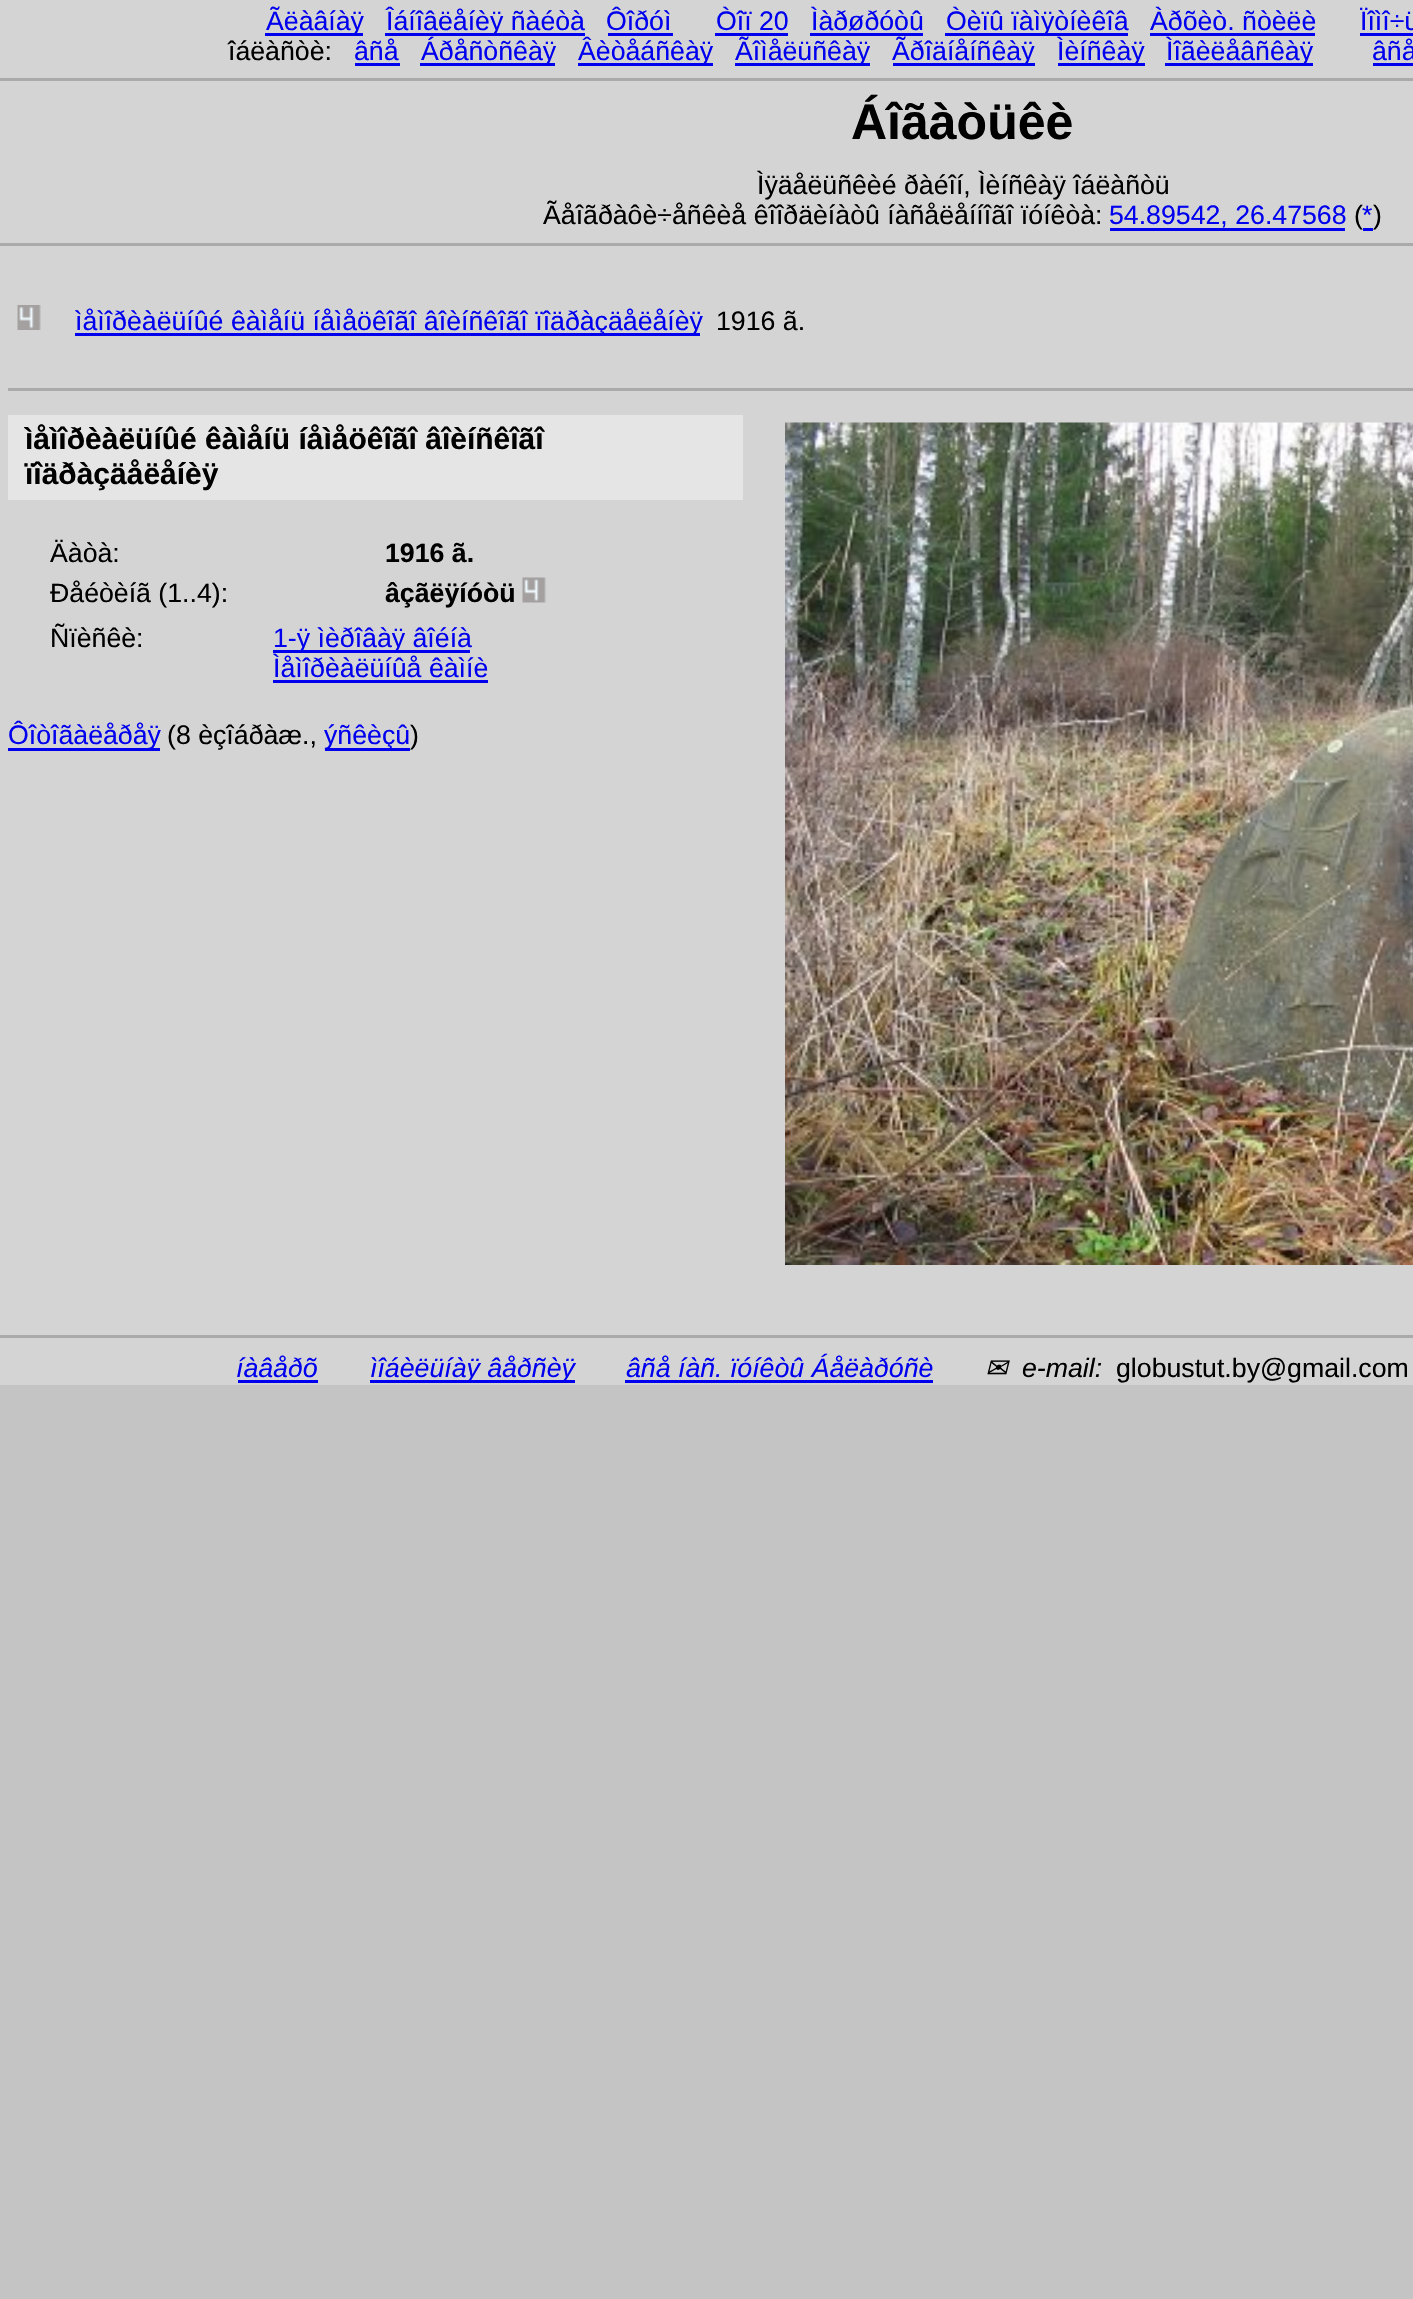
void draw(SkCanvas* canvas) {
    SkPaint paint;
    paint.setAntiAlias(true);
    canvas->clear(0xFFC4C4C4);
    paint.setColor(0xFFD4D4D4);
    canvas->drawRect(SkRect::MakeXYWH(0, 0, 1413, 1385), paint);
    paint.setColor(0xFF0000EE);
    canvas->drawRect(SkRect::MakeXYWH(265, 33, 98, 3), paint);
    SkFont font1(fontMgr->matchFamilyStyle("Liberation Sans", SkFontStyle::Normal()), 26.7f);
    font1.setSubpixel(true);
    canvas->drawString("Ãëàâíàÿ", 266, 30, font1, paint);
    canvas->drawRect(SkRect::MakeXYWH(385, 33, 200, 3), paint);
    canvas->drawString("Îáíîâëåíèÿ ñàéòà", 386, 30, font1, paint);
    canvas->drawString("Ôîðóì", 606, 30, font1, paint);
    canvas->drawRect(SkRect::MakeXYWH(608, 33, 65, 3), paint);
    canvas->drawString("Òîï 20", 716, 30, font1, paint);
    canvas->drawRect(SkRect::MakeXYWH(715, 33, 73, 3), paint);
    canvas->drawString("Ìàðøðóòû", 811, 30, font1, paint);
    canvas->drawRect(SkRect::MakeXYWH(810, 33, 113, 3), paint);
    canvas->drawRect(SkRect::MakeXYWH(945, 33, 183, 3), paint);
    canvas->drawString("Òèïû ïàìÿòíèêîâ", 946, 30, font1, paint);
    canvas->drawString("Àðõèò. ñòèëè", 1150, 30, font1, paint);
    canvas->drawRect(SkRect::MakeXYWH(1150, 33, 165, 3), paint);
    canvas->drawString("Ïîìî÷ü", 1360, 30, font1, paint);
    canvas->drawRect(SkRect::MakeXYWH(1360, 33, 53, 3), paint);
    paint.setColor(0xFF000000);
    canvas->drawString("îáëàñòè:", 228, 60, font1, paint);
    paint.setColor(0xFF0000EE);
    canvas->drawString("âñå", 354, 60, font1, paint);
    canvas->drawRect(SkRect::MakeXYWH(355, 63, 45, 3), paint);
    canvas->drawRect(SkRect::MakeXYWH(420, 63, 135, 3), paint);
    canvas->drawString("Áðåñòñêàÿ", 421, 60, font1, paint);
    canvas->drawRect(SkRect::MakeXYWH(578, 63, 135, 3), paint);
    canvas->drawString("Âèòåáñêàÿ", 578, 60, font1, paint);
    canvas->drawRect(SkRect::MakeXYWH(735, 63, 135, 3), paint);
    canvas->drawString("Ãîìåëüñêàÿ", 735, 60, font1, paint);
    canvas->drawRect(SkRect::MakeXYWH(893, 63, 142, 3), paint);
    canvas->drawString("Ãðîäíåíñêàÿ", 892, 60, font1, paint);
    canvas->drawRect(SkRect::MakeXYWH(1058, 63, 87, 3), paint);
    canvas->drawString("Ìèíñêàÿ", 1057, 60, font1, paint);
    canvas->drawRect(SkRect::MakeXYWH(1165, 63, 148, 3), paint);
    canvas->drawString("Ìîãèëåâñêàÿ", 1166, 60, font1, paint);
    canvas->drawString("âñå", 1372, 60, font1, paint);
    canvas->drawRect(SkRect::MakeXYWH(1373, 63, 40, 3), paint);
    paint.setColor(0xFFAAAAAA);
    canvas->drawRect(SkRect::MakeXYWH(0, 78, 1413, 3), paint);
    SkFont font2(fontMgr->matchFamilyStyle("Liberation Sans", SkFontStyle::Bold()), 50);
    font2.setSubpixel(true);
    paint.setColor(0xFF000000);
    canvas->drawString("Áîãàòüêè", 851, 139, font2, paint);
    canvas->drawString("Ìÿäåëüñêèé ðàéîí, Ìèíñêàÿ îáëàñòü", 757, 194, font1, paint);
    canvas->drawString("Ãåîãðàôè÷åñêèå êîîðäèíàòû íàñåëåííîãî ïóíêòà:", 543, 224, font1, paint);
    paint.setColor(0xFF0000EE);
    canvas->drawString("54.89542, 26.47568", 1109, 224, font1, paint);
    canvas->drawRect(SkRect::MakeXYWH(1110, 228, 235, 3), paint);
    paint.setColor(0xFF000000);
    canvas->drawString("(", 1354, 224, font1, paint);
    paint.setColor(0xFF0000EE);
    canvas->drawString("*", 1362, 224, font1, paint);
    canvas->drawRect(SkRect::MakeXYWH(1363, 228, 10, 3), paint);
    paint.setColor(0xFF000000);
    canvas->drawString(")", 1373, 224, font1, paint);
    paint.setColor(0xFFAAAAAA);
    canvas->drawRect(SkRect::MakeXYWH(0, 243, 1413, 3), paint);
    canvas->drawImageRect(SkImages::DeferredFromEncodedData(SkData::MakeFromFileName("img1.png")), SkRect::MakeXYWH(17, 305, 24, 25), SkSamplingOptions());
    paint.setColor(0xFF0000EE);
    canvas->drawRect(SkRect::MakeXYWH(75, 333, 625, 3), paint);
    canvas->drawString("ìåìîðèàëüíûé êàìåíü íåìåöêîãî âîèíñêîãî ïîäðàçäåëåíèÿ", 75, 330, font1, paint);
    paint.setColor(0xFF000000);
    canvas->drawString("1916 ã.", 716, 330, font1, paint);
    paint.setColor(0xFFAAAAAA);
    canvas->drawRect(SkRect::MakeXYWH(8, 388, 1405, 3), paint);
    paint.setColor(0xFFE5E5E5);
    canvas->drawRect(SkRect::MakeXYWH(8, 415, 735, 85), paint);
    SkFont font3(fontMgr->matchFamilyStyle("Liberation Sans", SkFontStyle::Bold()), 30);
    font3.setSubpixel(true);
    paint.setColor(0xFF000000);
    canvas->drawString("ìåìîðèàëüíûé êàìåíü íåìåöêîãî âîèíñêîãî", 25, 449, font3, paint);
    canvas->drawString("ïîäðàçäåëåíèÿ", 25, 484, font3, paint);
    canvas->drawString("Äàòà:", 50, 562, font1, paint);
    SkFont font4(fontMgr->matchFamilyStyle("Liberation Sans", SkFontStyle::Bold()), 26.7f);
    font4.setSubpixel(true);
    canvas->drawString("1916 ã.", 385, 562, font4, paint);
    canvas->drawString("Ðåéòèíã (1..4):", 50, 602, font1, paint);
    canvas->drawString("âçãëÿíóòü", 385, 602, font4, paint);
    canvas->drawImageRect(SkImages::DeferredFromEncodedData(SkData::MakeFromFileName("img2.png")), SkRect::MakeXYWH(522, 577, 24, 26), SkSamplingOptions());
    canvas->drawString("Ñïèñêè:", 50, 647, font1, paint);
    paint.setColor(0xFF0000EE);
    canvas->drawRect(SkRect::MakeXYWH(273, 650, 197, 3), paint);
    canvas->drawString("1-ÿ ìèðîâàÿ âîéíà", 273, 647, font1, paint);
    canvas->drawString("Ìåìîðèàëüíûå êàìíè", 273, 677, font1, paint);
    canvas->drawRect(SkRect::MakeXYWH(273, 680, 215, 3), paint);
    canvas->drawImageRect(SkImages::DeferredFromEncodedData(SkData::MakeFromFileName("img3.png")), SkRect::MakeXYWH(785, 422, 628, 843), SkSamplingOptions());
    canvas->drawRect(SkRect::MakeXYWH(8, 748, 152, 3), paint);
    canvas->drawString("Ôîòîãàëåðåÿ", 8, 744, font1, paint);
    paint.setColor(0xFF000000);
    canvas->drawString("(8 èçîáðàæ.,", 167, 744, font1, paint);
    paint.setColor(0xFF0000EE);
    canvas->drawRect(SkRect::MakeXYWH(325, 748, 85, 3), paint);
    canvas->drawString("ýñêèçû", 324, 744, font1, paint);
    paint.setColor(0xFF000000);
    canvas->drawString(")", 410, 744, font1, paint);
    paint.setColor(0xFFAAAAAA);
    canvas->drawRect(SkRect::MakeXYWH(0, 1335, 1413, 3), paint);
    SkFont font5(fontMgr->matchFamilyStyle("Liberation Sans", SkFontStyle::Italic()), 26.7f);
    font5.setSubpixel(true);
    paint.setColor(0xFF0000EE);
    canvas->drawString("íàâåðõ", 236, 1377, font5, paint);
    canvas->drawRect(SkRect::MakeXYWH(238, 1380, 80, 3), paint);
    canvas->drawRect(SkRect::MakeXYWH(370, 1380, 205, 3), paint);
    canvas->drawString("ìîáèëüíàÿ âåðñèÿ", 370, 1377, font5, paint);
    canvas->drawString("âñå íàñ. ïóíêòû Áåëàðóñè", 626, 1377, font5, paint);
    canvas->drawRect(SkRect::MakeXYWH(625, 1380, 308, 3), paint);
    SkFont font6(fontMgr->matchFamilyStyle("DejaVu Sans", SkFontStyle::Italic()), 26.7f);
    font6.setSubpixel(true);
    paint.setColor(0xFF000000);
    canvas->drawString("✉", 985, 1377, font6, paint);
    canvas->drawString("e-mail:", 1022, 1377, font5, paint);
    canvas->drawString("globustut.by@gmail.com", 1116, 1377, font1, paint);
}
